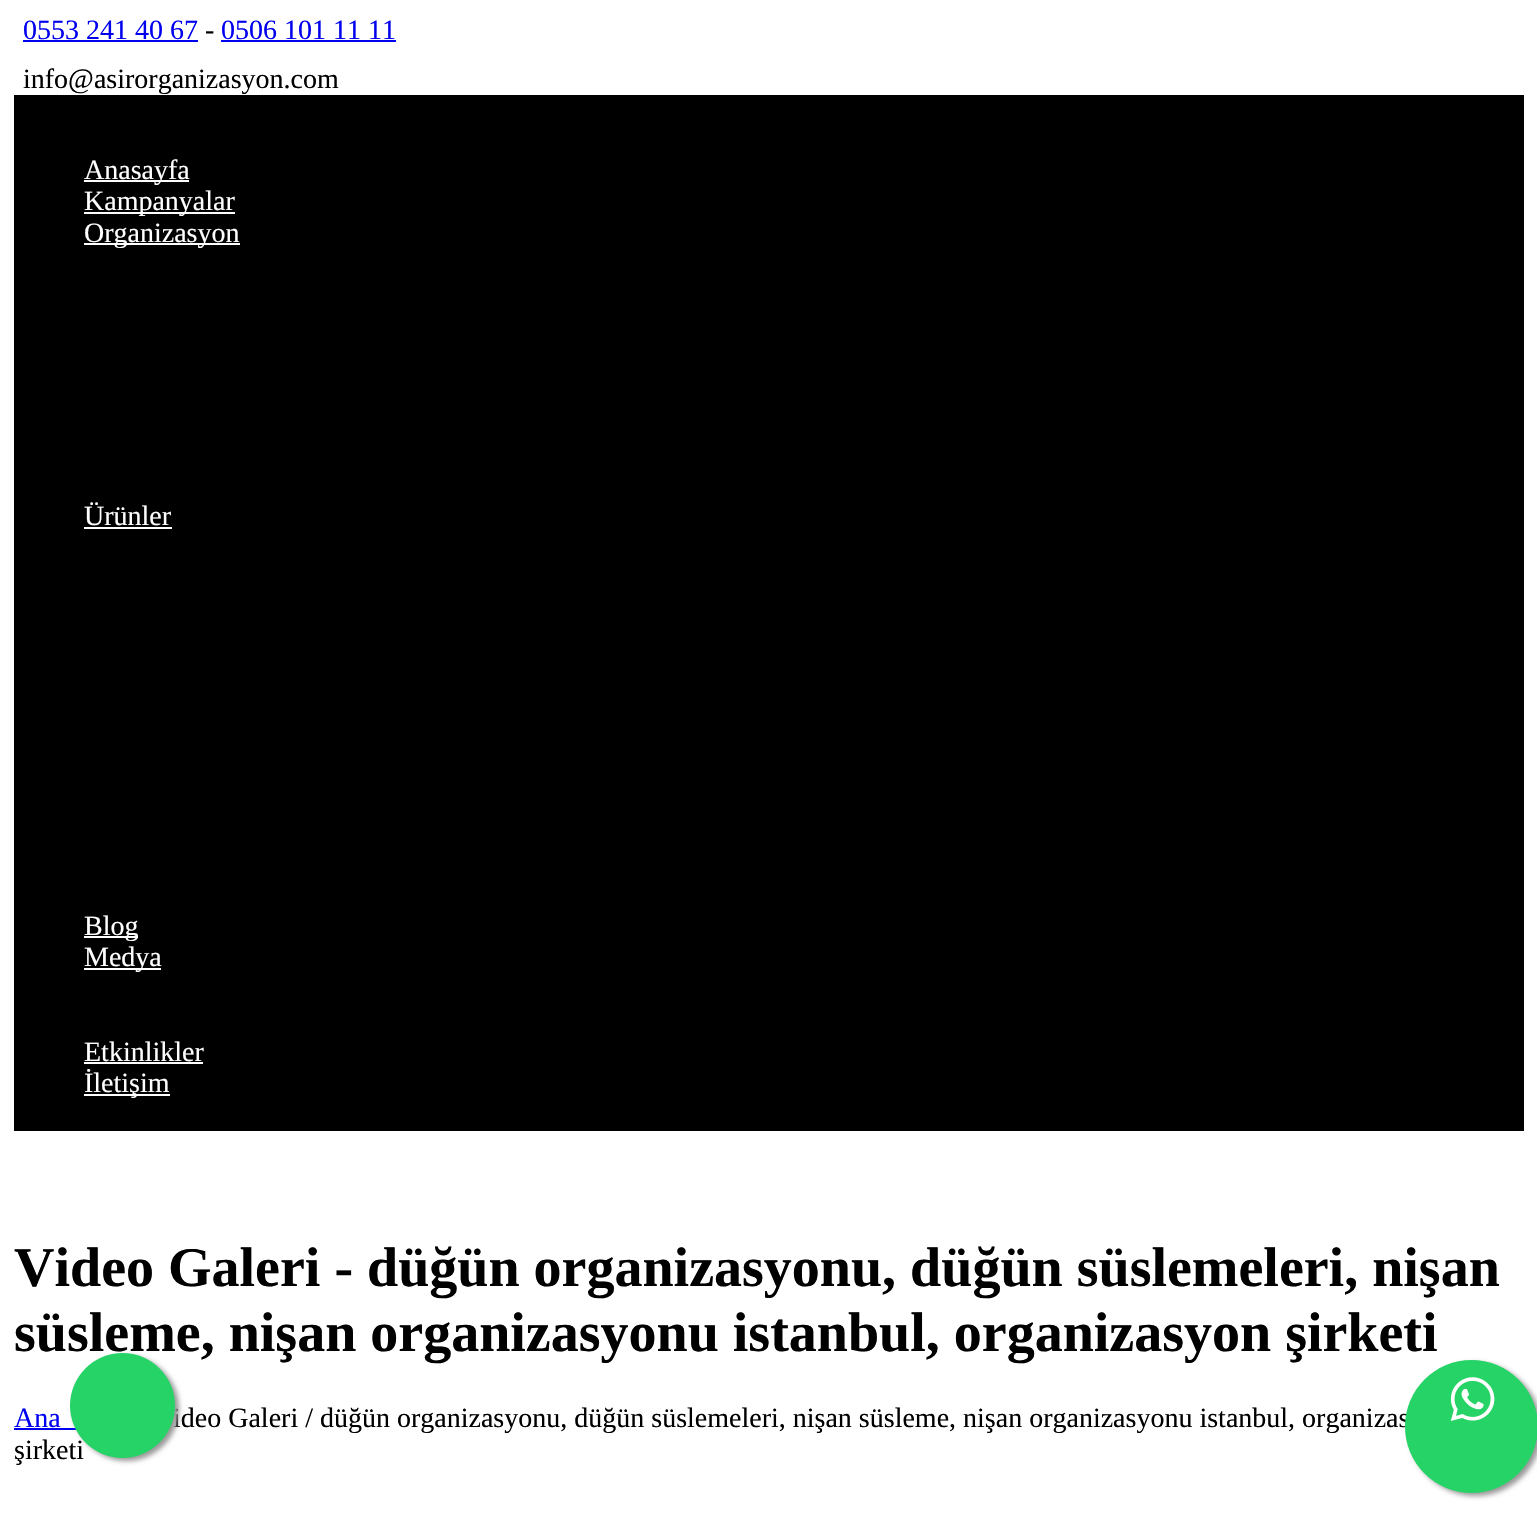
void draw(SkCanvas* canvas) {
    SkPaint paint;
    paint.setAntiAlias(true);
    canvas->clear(0xFFFFFFFF);
    SkFont font1(fontMgr->matchFamilyStyle("Liberation Serif", SkFontStyle::Normal()), 28);
    font1.setSubpixel(true);
    paint.setColor(0xFF0000EE);
    canvas->drawString("0553 241 40 67", 23, 39, font1, paint);
    canvas->drawRect(SkRect::MakeXYWH(23, 40, 175, 2), paint);
    paint.setColor(0xFF000000);
    canvas->drawString("-", 205, 39, font1, paint);
    paint.setColor(0xFF0000EE);
    canvas->drawString("0506 101 11 11", 221, 39, font1, paint);
    canvas->drawRect(SkRect::MakeXYWH(221, 40, 175, 2), paint);
    paint.setColor(0xFF000000);
    canvas->drawString("info@asirorganizasyon.com", 23, 88, font1, paint);
    canvas->drawRect(SkRect::MakeXYWH(14, 95, 1510, 1036), paint);
    paint.setColor(0xFFFFFFFF);
    canvas->drawRect(SkRect::MakeXYWH(84, 180, 105, 2), paint);
    canvas->drawString("Anasayfa", 84, 179, font1, paint);
    canvas->drawRect(SkRect::MakeXYWH(84, 212, 151, 2), paint);
    canvas->drawString("Kampanyalar", 84, 210, font1, paint);
    canvas->drawRect(SkRect::MakeXYWH(84, 243, 156, 2), paint);
    canvas->drawString("Organizasyon", 84, 242, font1, paint);
    canvas->drawString("Ürünler", 84, 525, font1, paint);
    canvas->drawRect(SkRect::MakeXYWH(84, 527, 88, 2), paint);
    canvas->drawRect(SkRect::MakeXYWH(84, 936, 54, 2), paint);
    canvas->drawString("Blog", 84, 935, font1, paint);
    canvas->drawRect(SkRect::MakeXYWH(84, 968, 77, 2), paint);
    canvas->drawString("Medya", 84, 966, font1, paint);
    canvas->drawString("Etkinlikler", 84, 1061, font1, paint);
    canvas->drawRect(SkRect::MakeXYWH(84, 1062, 119, 2), paint);
    canvas->drawRect(SkRect::MakeXYWH(84, 1094, 86, 2), paint);
    canvas->drawString("İletişim", 84, 1092, font1, paint);
    SkFont font2(fontMgr->matchFamilyStyle("Liberation Serif", SkFontStyle::Bold()), 56);
    font2.setSubpixel(true);
    paint.setColor(0xFF000000);
    canvas->drawString("Video Galeri - düğün organizasyonu, düğün süslemeleri, nişan", 14, 1286, font2, paint);
    canvas->drawString("süsleme, nişan organizasyonu istanbul, organizasyon şirketi", 14, 1351, font2, paint);
    paint.setColor(0xFF0000EE);
    canvas->drawString("Ana", 14, 1427, font1, paint);
    canvas->drawRect(SkRect::MakeXYWH(14, 1428, 63, 2), paint);
    paint.setColor(0xFF000000);
    canvas->drawString("ideo Galeri / düğün organizasyonu, düğün süslemeleri, nişan süsleme, nişan organizasyonu istanbul, organizas", 173, 1427, font1, paint);
    canvas->drawString("şirketi", 14, 1459, font1, paint);
    paint.setColor(0xFF999999);
    paint.setMaskFilter(SkMaskFilter::MakeBlur(kNormal_SkBlurStyle, 2.5f));
    canvas->drawRoundRect(SkRect::MakeXYWH(74, 1356, 105, 105), 52.5f, 52.5f, paint);
    paint.setMaskFilter(nullptr);
    paint.setColor(0xFF25D366);
    canvas->drawCircle(122.5f, 1405.5f, 52.5f, paint);
    paint.setColor(0xFF999999);
    paint.setMaskFilter(SkMaskFilter::MakeBlur(kNormal_SkBlurStyle, 2.5f));
    canvas->drawRoundRect(SkRect::MakeXYWH(1409, 1363, 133, 133), 66.5f, 66.5f, paint);
    paint.setMaskFilter(nullptr);
    paint.setColor(0xFF25D366);
    canvas->drawCircle(1471.5f, 1426.5f, 66.5f, paint);
    canvas->drawImageRect(SkImages::DeferredFromEncodedData(SkData::MakeFromFileName("img1.png")), SkRect::MakeXYWH(1450, 1377, 45, 44), SkSamplingOptions());
}
